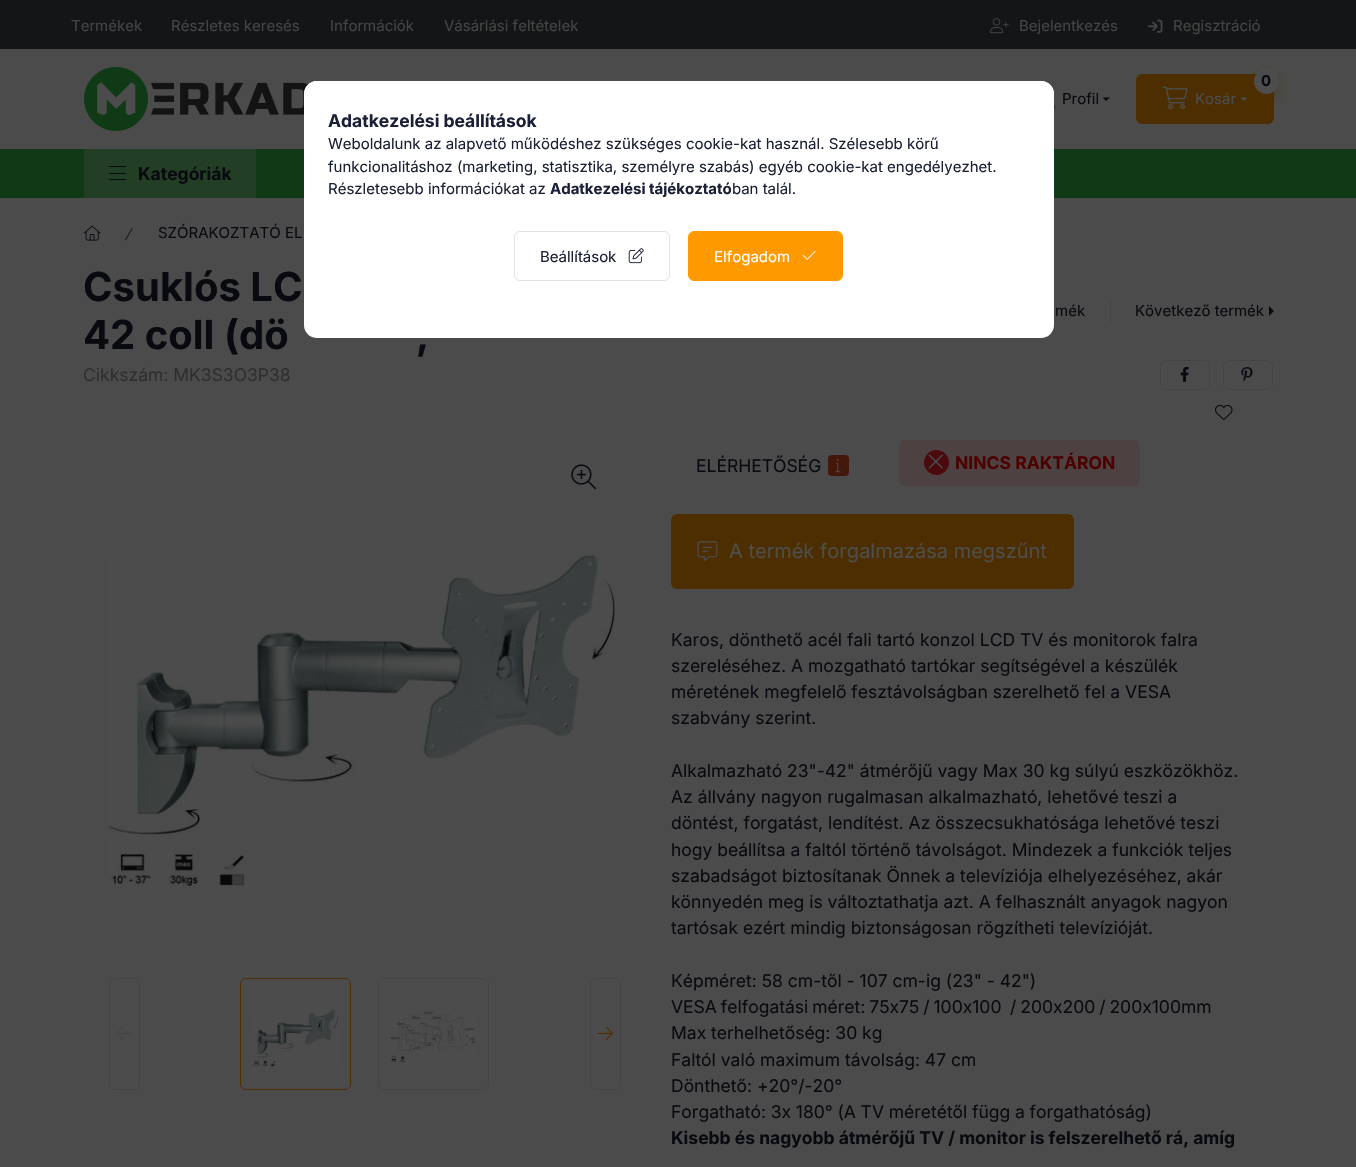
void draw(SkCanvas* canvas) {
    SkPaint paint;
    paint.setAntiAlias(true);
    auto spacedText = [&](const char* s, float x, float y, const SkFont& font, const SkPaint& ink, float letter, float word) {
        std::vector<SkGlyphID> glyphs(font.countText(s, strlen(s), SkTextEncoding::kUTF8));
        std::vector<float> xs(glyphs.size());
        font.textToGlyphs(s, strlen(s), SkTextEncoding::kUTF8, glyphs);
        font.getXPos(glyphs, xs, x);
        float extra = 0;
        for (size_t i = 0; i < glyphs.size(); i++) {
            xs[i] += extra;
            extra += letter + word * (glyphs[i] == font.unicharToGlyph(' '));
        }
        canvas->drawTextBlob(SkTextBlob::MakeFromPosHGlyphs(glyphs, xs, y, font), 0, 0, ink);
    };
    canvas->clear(0xFF4B4B4B);
    paint.setColor(0xFF131517);
    canvas->drawRect(SkRect::MakeXYWH(0, 0, 1356, 49), paint);
    SkFont font1(fontMgr->matchFamilyStyle("Inter", SkFontStyle::Normal()), 15);
    font1.setSubpixel(true);
    paint.setColor(0xFF444444);
    canvas->drawString("Termékek", 71, 31, font1, paint);
    canvas->drawString("Részletes keresés", 171, 31, font1, paint);
    canvas->drawString("Információk", 330, 31, font1, paint);
    canvas->drawString("Vásárlási feltételek", 444, 31, font1, paint);
    canvas->drawImageRect(SkImages::DeferredFromEncodedData(SkData::MakeFromFileName("img1.png")), SkRect::MakeXYWH(990, 18, 19, 16), SkSamplingOptions());
    canvas->drawString("Bejelentkezés", 1019, 31, font1, paint);
    canvas->drawImageRect(SkImages::DeferredFromEncodedData(SkData::MakeFromFileName("img2.png")), SkRect::MakeXYWH(1148, 19, 15, 14), SkSamplingOptions());
    canvas->drawString("Regisztráció", 1173, 31, font1, paint);
    canvas->drawImageRect(SkImages::DeferredFromEncodedData(SkData::MakeFromFileName("img3.png")), SkRect::MakeXYWH(84, 67, 225, 64), SkSamplingOptions());
    paint.setColor(0xFF080A10);
    canvas->drawString("Profil", 1062, 104, font1, paint);
    canvas->drawPath(SkPathBuilder().moveTo(1102.5f, 97.5f).lineTo(1110, 97.5f).lineTo(1106, 101).close().detach(), paint);
    canvas->drawImageRect(SkImages::DeferredFromEncodedData(SkData::MakeFromFileName("img4.png")), SkRect::MakeXYWH(1054, 104, 1, 5), SkSamplingOptions());
    paint.setColor(0xFF4D2E00);
    canvas->drawRoundRect(SkRect::MakeXYWH(1136, 74, 138, 50), 6, 6, paint);
    paint.setColor(0x664D2E00);
    paint.setMaskFilter(SkMaskFilter::MakeBlur(kNormal_SkBlurStyle, 6));
    canvas->drawRoundRect(SkRect::MakeXYWH(1254, 75, 25, 25), 12.5f, 12.5f, paint);
    paint.setMaskFilter(nullptr);
    paint.setColor(0xFF4D4D4D);
    canvas->drawCircle(1266.5f, 81.5f, 12.5f, paint);
    SkFont font2(fontMgr->matchFamilyStyle("Inter", SkFontStyle::Bold()), 15);
    font2.setSubpixel(true);
    paint.setColor(0xFF080A10);
    canvas->drawString("0", 1261, 86, font2, paint);
    canvas->drawImageRect(SkImages::DeferredFromEncodedData(SkData::MakeFromFileName("img5.png")), SkRect::MakeXYWH(1162, 86, 26, 23), SkSamplingOptions());
    paint.setColor(0xFF4D4D4D);
    canvas->drawString("Kosár", 1195, 104, font1, paint);
    canvas->drawPath(SkPathBuilder().moveTo(1240, 97.5f).lineTo(1247.5f, 97.5f).lineTo(1244, 101).close().detach(), paint);
    paint.setColor(0xFF103916);
    canvas->drawRect(SkRect::MakeXYWH(0, 149, 1356, 49), paint);
    paint.setColor(0xFF223F26);
    canvas->drawRect(SkRect::MakeXYWH(84, 149, 172, 49), paint);
    paint.setColor(0xFF080A10);
    canvas->drawRect(SkRect::MakeXYWH(109, 166, 17, 1), paint);
    canvas->drawRect(SkRect::MakeXYWH(109, 173, 17, 1), paint);
    canvas->drawRect(SkRect::MakeXYWH(109, 179, 17, 1), paint);
    SkFont font3(fontMgr->matchFamilyStyle("Inter", SkFontStyle::Bold()), 17.5f);
    font3.setSubpixel(true);
    canvas->drawString("Kategóriák", 138, 180, font3, paint);
    canvas->drawImageRect(SkImages::DeferredFromEncodedData(SkData::MakeFromFileName("img6.png")), SkRect::MakeXYWH(83, 225, 18, 16), SkSamplingOptions());
    canvas->drawImageRect(SkImages::DeferredFromEncodedData(SkData::MakeFromFileName("img7.png")), SkRect::MakeXYWH(125, 227, 8, 14), SkSamplingOptions());
    canvas->drawString("SZÓRAKOZTATÓ EL", 158, 238, font1, paint);
    SkFont font4(fontMgr->matchFamilyStyle("Inter", SkFontStyle::Bold()), 40);
    font4.setSubpixel(true);
    canvas->drawString("Csuklós LC", 83, 301, font4, paint);
    canvas->drawString("42 coll (dö", 83, 349, font4, paint);
    canvas->drawString(",", 416, 349, font4, paint);
    canvas->drawString("mék", 1055, 316, font1, paint);
    paint.setColor(0xFF444444);
    canvas->drawRect(SkRect::MakeXYWH(1110, 300, 1, 23), paint);
    paint.setColor(0xFF080A10);
    canvas->drawString("Következő termék", 1135, 316, font1, paint);
    canvas->drawPath(SkPathBuilder().moveTo(1269, 316).lineTo(1269, 306).lineTo(1274, 311).close().detach(), paint);
    SkFont font5(fontMgr->matchFamilyStyle("Inter", SkFontStyle::Normal()), 17.5f);
    font5.setSubpixel(true);
    paint.setColor(0xFF2E2E2E);
    canvas->drawString("Cikkszám: MK3S3O3P38", 83, 381, font5, paint);
    paint.setStyle(SkPaint::kStroke_Style);
    paint.setStrokeWidth(1);
    paint.setColor(0xFF444444);
    canvas->drawRoundRect(SkRect::MakeXYWH(1160.5f, 360.5f, 49, 29), 5.5f, 5.5f, paint);
    canvas->drawImageRect(SkImages::DeferredFromEncodedData(SkData::MakeFromFileName("img8.png")), SkRect::MakeXYWH(1180, 366, 9, 16), SkSamplingOptions());
    canvas->drawRoundRect(SkRect::MakeXYWH(1223.5f, 360.5f, 49, 29), 5.5f, 5.5f, paint);
    canvas->drawImageRect(SkImages::DeferredFromEncodedData(SkData::MakeFromFileName("img9.png")), SkRect::MakeXYWH(1241, 367, 12, 15), SkSamplingOptions());
    canvas->drawImageRect(SkImages::DeferredFromEncodedData(SkData::MakeFromFileName("img10.png")), SkRect::MakeXYWH(1215, 404, 18, 16), SkSamplingOptions());
    canvas->drawImageRect(SkImages::DeferredFromEncodedData(SkData::MakeFromFileName("img11.png")), SkRect::MakeXYWH(571, 464, 26, 26), SkSamplingOptions());
    canvas->drawImageRect(SkImages::DeferredFromEncodedData(SkData::MakeFromFileName("img12.png")), SkRect::MakeXYWH(108, 554, 509, 337), SkSamplingOptions());
    canvas->drawRoundRect(SkRect::MakeXYWH(109.5f, 978.5f, 30, 111), 5.5f, 5.5f, paint);
    canvas->drawImageRect(SkImages::DeferredFromEncodedData(SkData::MakeFromFileName("img13.png")), SkRect::MakeXYWH(116, 1027, 16, 13), SkSamplingOptions());
    paint.setColor(0xFF4D2E00);
    canvas->drawRoundRect(SkRect::MakeXYWH(240.5f, 978.5f, 110, 111), 5.5f, 5.5f, paint);
    canvas->drawImageRect(SkImages::DeferredFromEncodedData(SkData::MakeFromFileName("img14.png")), SkRect::MakeXYWH(252, 1009, 87, 58), SkSamplingOptions());
    paint.setColor(0xFF444444);
    canvas->drawRoundRect(SkRect::MakeXYWH(378.5f, 978.5f, 110, 111), 5.5f, 5.5f, paint);
    canvas->drawImageRect(SkImages::DeferredFromEncodedData(SkData::MakeFromFileName("img15.png")), SkRect::MakeXYWH(390, 1011, 86, 52), SkSamplingOptions());
    canvas->drawRoundRect(SkRect::MakeXYWH(590.5f, 978.5f, 30, 111), 5.5f, 5.5f, paint);
    canvas->drawImageRect(SkImages::DeferredFromEncodedData(SkData::MakeFromFileName("img16.png")), SkRect::MakeXYWH(597, 1026, 16, 14), SkSamplingOptions());
    paint.setStyle(SkPaint::kFill_Style);
    paint.setColor(0xFF080A10);
    canvas->drawString("ELÉRHETŐSÉG", 696, 472, font5, paint);
    paint.setColor(0xFF43180B);
    canvas->drawRoundRect(SkRect::MakeXYWH(828, 455, 21, 21), 4, 4, paint);
    canvas->drawImageRect(SkImages::DeferredFromEncodedData(SkData::MakeFromFileName("img17.png")), SkRect::MakeXYWH(835, 459, 6, 14), SkSamplingOptions());
    paint.setColor(0xFF4D4141);
    canvas->drawRoundRect(SkRect::MakeXYWH(899, 440, 241, 46), 6, 6, paint);
    paint.setColor(0xFF4B0A0E);
    canvas->drawCircle(936.5f, 462.5f, 12.5f, paint);
    canvas->drawImageRect(SkImages::DeferredFromEncodedData(SkData::MakeFromFileName("img18.png")), SkRect::MakeXYWH(928, 454, 15, 15), SkSamplingOptions());
    paint.setColor(0xFF4D0000);
    canvas->drawString("NINCS RAKTÁRON", 955, 469, font3, paint);
    paint.setColor(0xFF4D2E00);
    canvas->drawRoundRect(SkRect::MakeXYWH(671, 514, 403, 75), 6, 6, paint);
    canvas->drawImageRect(SkImages::DeferredFromEncodedData(SkData::MakeFromFileName("img19.png")), SkRect::MakeXYWH(697, 541, 21, 20), SkSamplingOptions());
    SkFont font6(fontMgr->matchFamilyStyle("Inter", SkFontStyle::Normal()), 20);
    font6.setSubpixel(true);
    paint.setColor(0xFF4D4D4D);
    canvas->drawString("A termék forgalmazása megszűnt", 729, 558, font6, paint);
    paint.setColor(0xFF080A10);
    canvas->drawString("Karos, dönthető acél fali tartó konzol LCD TV és monitorok falra", 671, 646, font5, paint);
    canvas->drawString("szereléséhez. A mozgatható tartókar segítségével a készülék", 671, 672, font5, paint);
    canvas->drawString("méretének megfelelő fesztávolságban szerelhető fel a VESA", 671, 698, font5, paint);
    canvas->drawString("szabvány szerint.", 671, 724, font5, paint);
    canvas->drawString("Alkalmazható 23\"-42\" átmérőjű vagy Max 30 kg súlyú eszközökhöz.", 671, 777, font5, paint);
    canvas->drawString("Az állvány nagyon rugalmasan alkalmazható, lehetővé teszi a", 671, 803, font5, paint);
    canvas->drawString("döntést, forgatást, lendítést. Az összecsukhatósága lehetővé teszi", 671, 829, font5, paint);
    canvas->drawString("hogy beállítsa a faltól történő távolságot. Mindezek a funkciók teljes", 671, 856, font5, paint);
    canvas->drawString("szabadságot biztosítanak Önnek a televíziója elhelyezéséhez, akár", 671, 882, font5, paint);
    canvas->drawString("könnyedén meg is változtathatja azt. A felhasznált anyagok nagyon", 671, 908, font5, paint);
    canvas->drawString("tartósak ezért mindig biztonságosan rögzítheti televízióját.", 671, 934, font5, paint);
    canvas->drawString("Képméret: 58 cm-től - 107 cm-ig (23\" - 42\")", 671, 987, font5, paint);
    spacedText("VESA felfogatási méret: 75x75 / 100x100", 671, 1013, font5, paint, 0, -1);
    spacedText("/ 200x200 / 200x100mm", 1010, 1013, font5, paint, 0, -1);
    canvas->drawString("Max terhelhetőség: 30 kg", 671, 1039, font5, paint);
    canvas->drawString("Faltól való maximum távolság: 47 cm", 671, 1066, font5, paint);
    canvas->drawString("Dönthető: +20°/-20°", 671, 1092, font5, paint);
    spacedText("Forgatható: 3x 180° (A TV méretétől függ a forgathatóság)", 671, 1118, font5, paint, 0, -0.25f);
    canvas->drawString("Kisebb és nagyobb átmérőjű TV / monitor is felszerelhető rá, amíg", 671, 1144, font3, paint);
    paint.setColor(0xFFFFFFFF);
    canvas->drawRoundRect(SkRect::MakeXYWH(304, 81, 750, 257), 13, 13, paint);
    canvas->drawPath(SkPathBuilder().moveTo(317, 81).lineTo(1041, 81).cubicTo(1048, 81, 1054, 87, 1054, 94).lineTo(1054, 313).lineTo(304, 313).lineTo(304, 94).cubicTo(304, 87, 310, 81, 317, 81).close().detach(), paint);
    paint.setColor(0xFF1B2036);
    canvas->drawString("Adatkezelési beállítások", 328, 127, font3, paint);
    canvas->drawString("Weboldalunk az alapvető működéshez szükséges cookie-kat használ. Szélesebb körű", 328, 149, font1, paint);
    canvas->drawString("funkcionalitáshoz (marketing, statisztika, személyre szabás) egyéb cookie-kat engedélyezhet.", 328, 172, font1, paint);
    canvas->drawString("Részletesebb információkat az", 328, 194, font1, paint);
    canvas->drawString("Adatkezelési tájékoztató", 550, 194, font2, paint);
    canvas->drawString("ban talál.", 732, 194, font1, paint);
    paint.setStyle(SkPaint::kStroke_Style);
    paint.setColor(0xFFE1E1E1);
    canvas->drawRoundRect(SkRect::MakeXYWH(514.5f, 231.5f, 155, 49), 5.5f, 5.5f, paint);
    paint.setStyle(SkPaint::kFill_Style);
    paint.setColor(0xFF1B2036);
    canvas->drawString("Beállítások", 540, 262, font1, paint);
    canvas->drawImageRect(SkImages::DeferredFromEncodedData(SkData::MakeFromFileName("img20.png")), SkRect::MakeXYWH(628, 248, 16, 16), SkSamplingOptions());
    paint.setColor(0xFFFF9900);
    canvas->drawRoundRect(SkRect::MakeXYWH(688.5f, 231.5f, 154, 49), 5.5f, 5.5f, paint);
    paint.setStyle(SkPaint::kStroke_Style);
    canvas->drawRoundRect(SkRect::MakeXYWH(688.5f, 231.5f, 154, 49), 5.5f, 5.5f, paint);
    paint.setStyle(SkPaint::kFill_Style);
    paint.setColor(0xFFFFFFFF);
    canvas->drawString("Elfogadom", 714, 262, font1, paint);
    canvas->drawImageRect(SkImages::DeferredFromEncodedData(SkData::MakeFromFileName("img21.png")), SkRect::MakeXYWH(802, 251, 14, 9), SkSamplingOptions());
}
